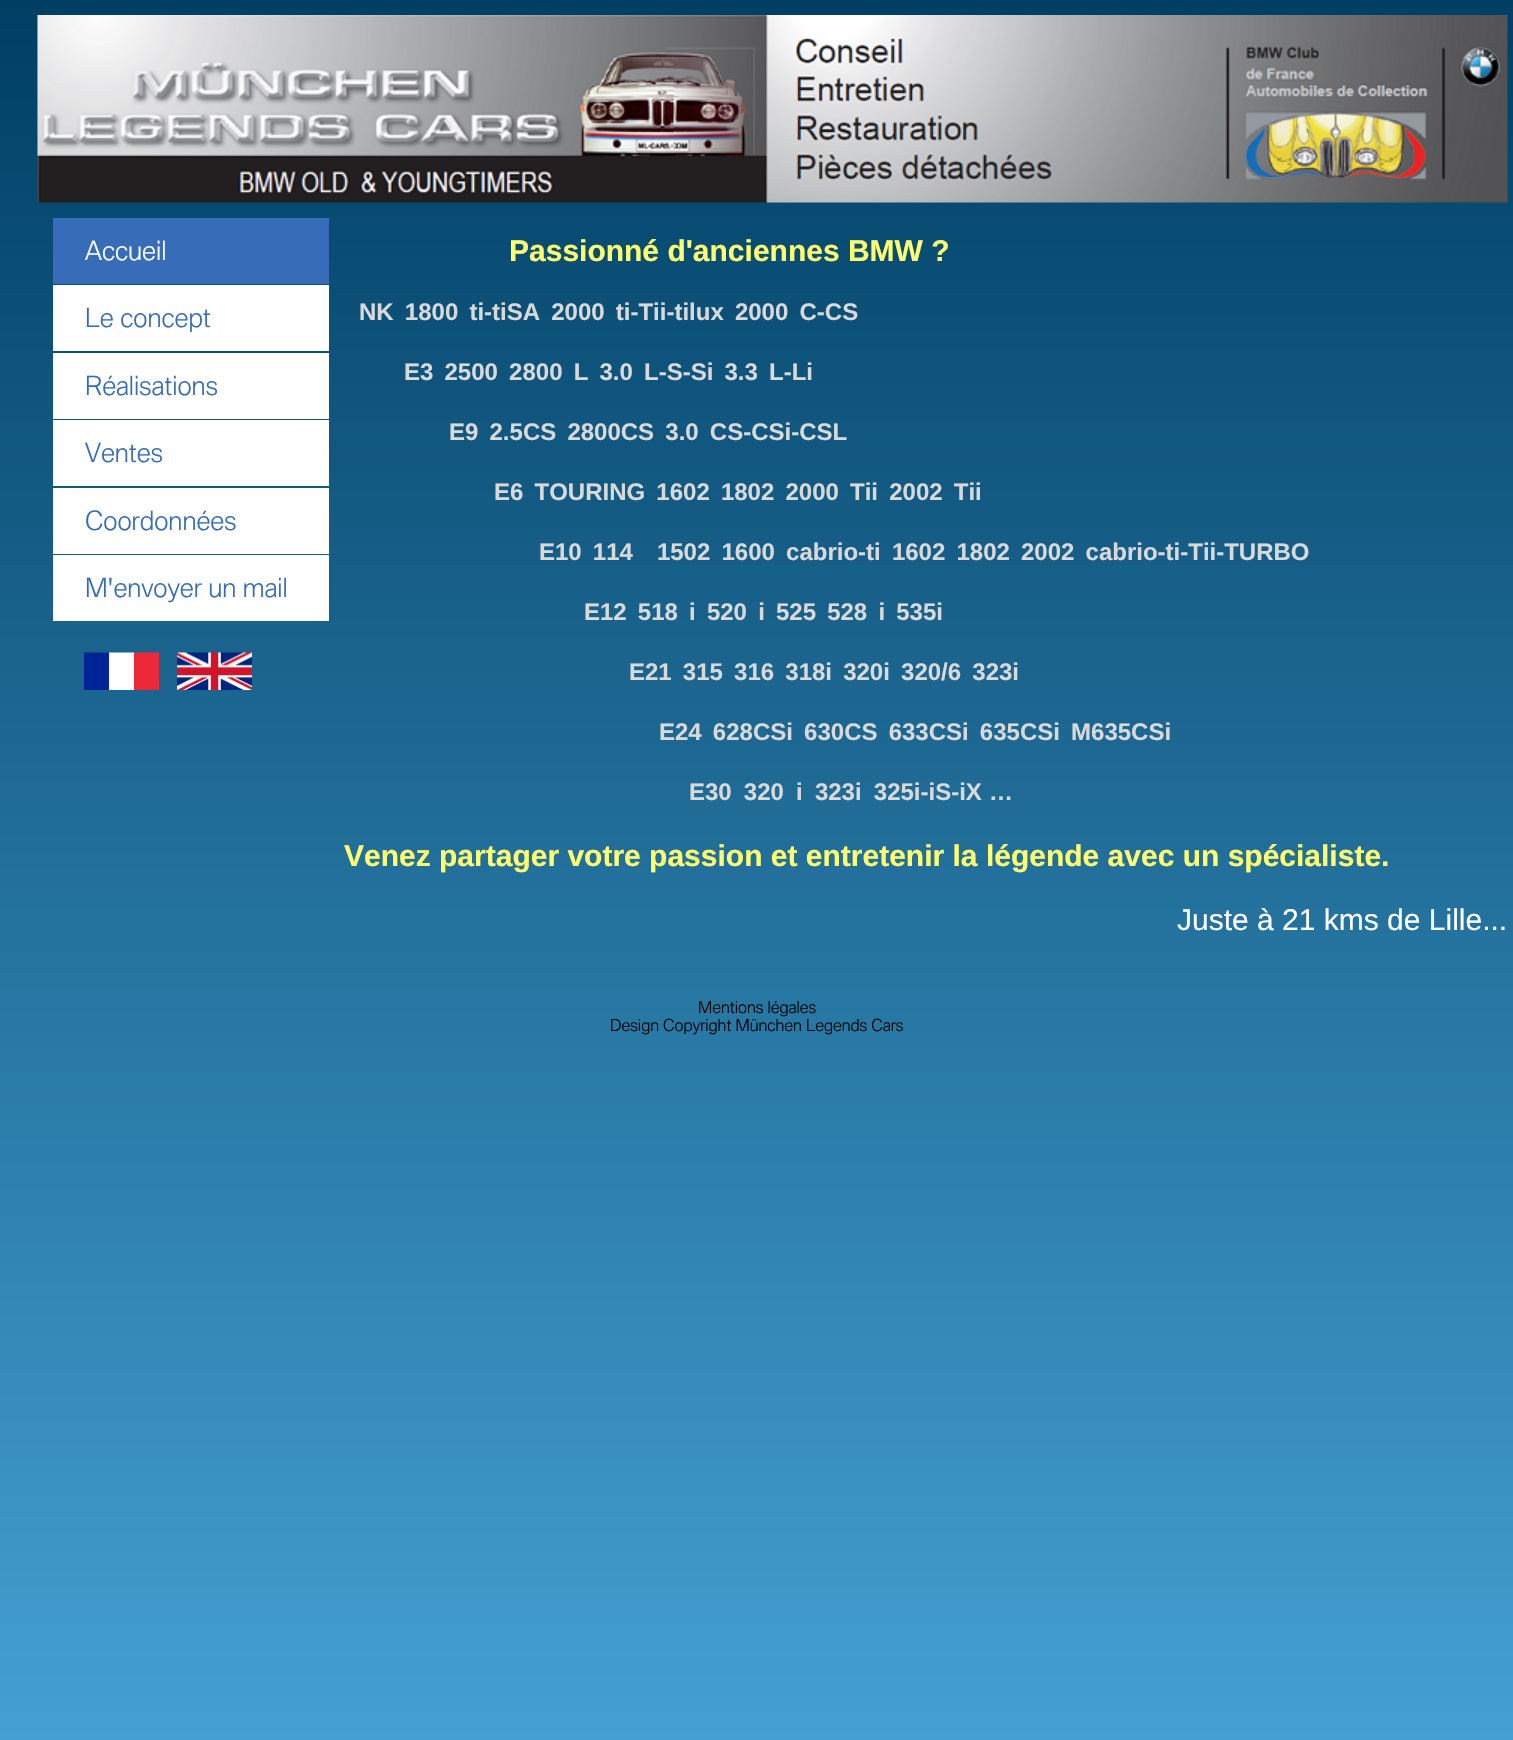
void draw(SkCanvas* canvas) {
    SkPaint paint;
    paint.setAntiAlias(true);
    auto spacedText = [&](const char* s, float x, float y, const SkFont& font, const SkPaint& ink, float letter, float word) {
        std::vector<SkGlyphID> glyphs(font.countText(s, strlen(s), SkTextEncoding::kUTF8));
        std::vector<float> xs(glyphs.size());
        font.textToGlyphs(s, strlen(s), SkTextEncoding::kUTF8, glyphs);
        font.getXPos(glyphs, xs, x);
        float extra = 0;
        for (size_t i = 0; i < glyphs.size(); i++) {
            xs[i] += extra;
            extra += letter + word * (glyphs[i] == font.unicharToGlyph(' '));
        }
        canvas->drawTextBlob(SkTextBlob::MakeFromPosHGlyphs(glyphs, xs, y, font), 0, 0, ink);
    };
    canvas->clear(0xFFFFFFFF);
    {
        const SkColor colors[] = {0xFF003F64, 0xFF44A0D2};
        const float stops[] = {0, 1};
        const SkPoint ends[] = {{757, 0}, {757, 1740}};
        paint.setShader(SkGradientShader::MakeLinear(ends, colors, stops, 2, SkTileMode::kClamp));
        paint.setAlpha(255);
    }
    canvas->drawRect(SkRect::MakeXYWH(0, 0, 1513, 1740), paint);
    canvas->drawImageRect(SkImages::DeferredFromEncodedData(SkData::MakeFromFileName("img1.png")), SkRect::MakeXYWH(37, 15, 1471, 188), SkSamplingOptions());
    paint.setShader(nullptr);
    paint.setColor(0xFF376CB9);
    canvas->drawRect(SkRect::MakeXYWH(53, 218, 276, 66), paint);
    SkFont font1(fontMgr->matchFamilyStyle("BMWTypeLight", SkFontStyle(300, SkFontStyle::kNormal_Width, SkFontStyle::kUpright_Slant)), 25.5f);
    font1.setSubpixel(true);
    paint.setColor(0xFFFFFFFF);
    canvas->drawString("Accueil", 85, 260, font1, paint);
    canvas->drawRect(SkRect::MakeXYWH(53, 285, 276, 66), paint);
    paint.setColor(0xFF376CB9);
    canvas->drawString("Le concept", 85, 327, font1, paint);
    paint.setColor(0xFFFFFFFF);
    canvas->drawRect(SkRect::MakeXYWH(53, 353, 276, 66), paint);
    paint.setColor(0xFF376CB9);
    canvas->drawString("Réalisations", 85, 395, font1, paint);
    paint.setColor(0xFFFFFFFF);
    canvas->drawRect(SkRect::MakeXYWH(53, 420, 276, 66), paint);
    paint.setColor(0xFF376CB9);
    canvas->drawString("Ventes", 85, 462, font1, paint);
    paint.setColor(0xFFFFFFFF);
    canvas->drawRect(SkRect::MakeXYWH(53, 488, 276, 66), paint);
    paint.setColor(0xFF376CB9);
    canvas->drawString("Coordonnées", 85, 530, font1, paint);
    paint.setColor(0xFFFFFFFF);
    canvas->drawRect(SkRect::MakeXYWH(53, 555, 276, 66), paint);
    paint.setColor(0xFF376CB9);
    canvas->drawString("M'envoyer un mail", 85, 597, font1, paint);
    SkFont font2(fontMgr->matchFamilyStyle("Liberation Sans", SkFontStyle::Bold()), 30);
    font2.setSubpixel(true);
    paint.setColor(0xFFFFFF70);
    canvas->drawString("Passionné d'anciennes BMW ?", 509, 261, font2, paint);
    SkFont font3(fontMgr->matchFamilyStyle("Liberation Sans", SkFontStyle::Bold()), 24);
    font3.setSubpixel(true);
    paint.setColor(0xFFD9D9D9);
    spacedText("NK 1800 ti-tiSA 2000 ti-Tii-tilux 2000 C-CS", 359, 320, font3, paint, 0, 4.5f);
    spacedText("E3 2500 2800 L 3.0 L-S-Si 3.3 L-Li", 404, 380, font3, paint, 0, 4.5f);
    spacedText("E9 2.5CS 2800CS 3.0 CS-CSi-CSL", 449, 440, font3, paint, 0, 4.5f);
    spacedText("E6 TOURING 1602 1802 2000 Tii 2002 Tii", 494, 500, font3, paint, 0, 4.5f);
    spacedText("E10 114 1502 1600 cabrio-ti 1602 1802 2002 cabrio-ti-Tii-TURBO", 539, 560, font3, paint, 0, 4.5f);
    spacedText("E12 518 i 520 i 525 528 i 535i", 584, 620, font3, paint, 0, 4.5f);
    spacedText("E21 315 316 318i 320i 320/6 323i", 629, 680, font3, paint, 0, 4.5f);
    spacedText("E24 628CSi 630CS 633CSi 635CSi M635CSi", 659, 740, font3, paint, 0, 4.5f);
    spacedText("E30 320 i 323i 325i-iS-iX", 689, 800, font3, paint, 0, 5.5f);
    canvas->drawString("…", 989, 800, font3, paint);
    paint.setColor(0xFFFFFF70);
    canvas->drawString("Venez partager votre passion et entretenir la légende avec un spécialiste.", 344, 866, font2, paint);
    SkFont font4(fontMgr->matchFamilyStyle("Liberation Sans", SkFontStyle::Normal()), 30);
    font4.setSubpixel(true);
    paint.setColor(0xFFFFFFFF);
    canvas->drawString("Juste à 21 kms de Lille...", 1177, 930, font4, paint);
    canvas->drawImageRect(SkImages::DeferredFromEncodedData(SkData::MakeFromFileName("img2.png")), SkRect::MakeXYWH(84, 652, 75, 38), SkSamplingOptions());
    canvas->drawImageRect(SkImages::DeferredFromEncodedData(SkData::MakeFromFileName("img3.png")), SkRect::MakeXYWH(177, 652, 75, 38), SkSamplingOptions());
    SkFont font5(fontMgr->matchFamilyStyle("BMWTypeLight", SkFontStyle(300, SkFontStyle::kNormal_Width, SkFontStyle::kUpright_Slant)), 16);
    font5.setSubpixel(true);
    paint.setColor(0xFF000000);
    canvas->drawString("Mentions légales", 698, 1013, font5, paint);
    canvas->drawString("Design Copyright München Legends Cars", 610, 1031, font5, paint);
}
